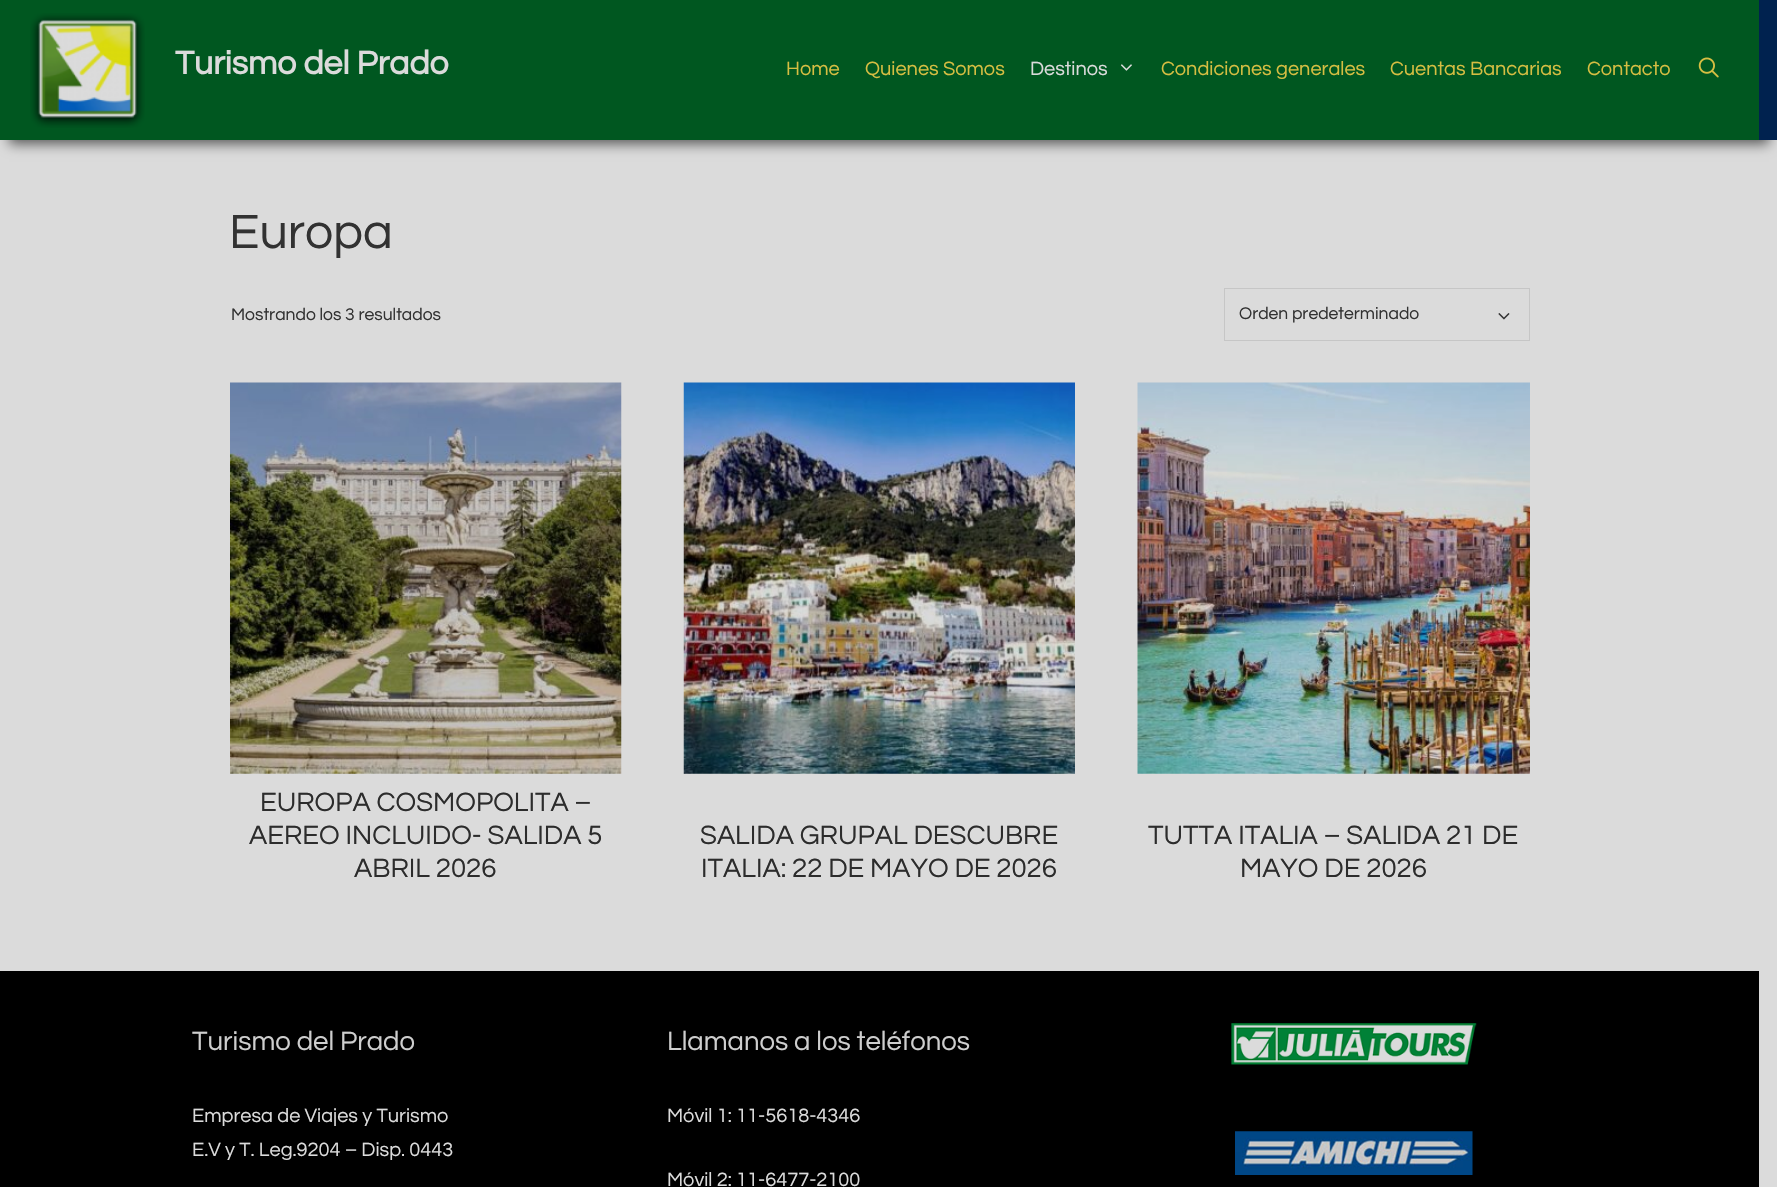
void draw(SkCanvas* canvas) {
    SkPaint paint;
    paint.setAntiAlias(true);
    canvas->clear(0xFFDBDBDB);
    paint.setColor(0xFF585858);
    paint.setMaskFilter(SkMaskFilter::MakeBlur(kNormal_SkBlurStyle, 6));
    canvas->drawRect(SkRect::MakeXYWH(9, 21, 1760, 123), paint);
    paint.setMaskFilter(nullptr);
    paint.setColor(0xFF00224F);
    canvas->drawRect(SkRect::MakeXYWH(1759, 0, 18, 140), paint);
    paint.setColor(0xFF005720);
    canvas->drawRect(SkRect::MakeXYWH(0, 0, 1759, 140), paint);
    canvas->drawImageRect(SkImages::DeferredFromEncodedData(SkData::MakeFromFileName("img1.png")), SkRect::MakeXYWH(30, 13, 115, 115), SkSamplingOptions());
    SkFont font1(fontMgr->matchFamilyStyle("Questrial", SkFontStyle::Bold()), 33.75f);
    font1.setSubpixel(true);
    paint.setColor(0xFFDBDBDB);
    canvas->drawString("Turismo del Prado", 175, 74, font1, paint);
    SkFont font2(fontMgr->matchFamilyStyle("Questrial", SkFontStyle::Normal()), 20);
    font2.setSubpixel(true);
    paint.setColor(0xFFD6BE42);
    canvas->drawString("Home", 786, 75, font2, paint);
    canvas->drawString("Quienes Somos", 865, 75, font2, paint);
    paint.setColor(0xFFDBDBDB);
    canvas->drawString("Destinos", 1030, 75, font2, paint);
    canvas->drawImageRect(SkImages::DeferredFromEncodedData(SkData::MakeFromFileName("img2.png")), SkRect::MakeXYWH(1120, 64, 12, 7), SkSamplingOptions());
    paint.setColor(0xFFD6BE42);
    canvas->drawString("Condiciones generales", 1161, 75, font2, paint);
    canvas->drawString("Cuentas Bancarias", 1390, 75, font2, paint);
    canvas->drawString("Contacto", 1587, 75, font2, paint);
    canvas->drawImageRect(SkImages::DeferredFromEncodedData(SkData::MakeFromFileName("img3.png")), SkRect::MakeXYWH(1698, 57, 21, 21), SkSamplingOptions());
    SkFont font3(fontMgr->matchFamilyStyle("Questrial", SkFontStyle::Normal()), 50);
    font3.setSubpixel(true);
    paint.setColor(0xFF323232);
    canvas->drawString("Europa", 229, 248, font3, paint);
    SkFont font4(fontMgr->matchFamilyStyle("Questrial", SkFontStyle::Normal()), 17.5f);
    font4.setSubpixel(true);
    canvas->drawString("Mostrando los 3 resultados", 231, 320, font4, paint);
    paint.setStyle(SkPaint::kStroke_Style);
    paint.setStrokeWidth(1);
    paint.setColor(0xFFC6C6C6);
    canvas->drawRect(SkRect::MakeXYWH(1224.5f, 288.5f, 305, 52), paint);
    paint.setStyle(SkPaint::kFill_Style);
    paint.setColor(0xFF323232);
    canvas->drawString("Orden predeterminado", 1239, 319, font4, paint);
    canvas->drawImageRect(SkImages::DeferredFromEncodedData(SkData::MakeFromFileName("img4.png")), SkRect::MakeXYWH(1498, 313, 12, 7), SkSamplingOptions());
    canvas->drawImageRect(SkImages::DeferredFromEncodedData(SkData::MakeFromFileName("img5.png")), SkRect::MakeXYWH(230, 382, 392, 392), SkSamplingOptions());
    SkFont font5(fontMgr->matchFamilyStyle("Questrial", SkFontStyle::Normal()), 27.5f);
    font5.setSubpixel(true);
    paint.setColor(0xFF2C2C2C);
    canvas->drawString("EUROPA COSMOPOLITA –", 260, 811, font5, paint);
    canvas->drawString("AEREO INCLUIDO- SALIDA 5", 249, 844, font5, paint);
    canvas->drawString("ABRIL 2026", 354, 877, font5, paint);
    canvas->drawImageRect(SkImages::DeferredFromEncodedData(SkData::MakeFromFileName("img6.png")), SkRect::MakeXYWH(683, 382, 392, 392), SkSamplingOptions());
    canvas->drawString("SALIDA GRUPAL DESCUBRE", 700, 844, font5, paint);
    canvas->drawString("ITALIA: 22 DE MAYO DE 2026", 701, 877, font5, paint);
    canvas->drawImageRect(SkImages::DeferredFromEncodedData(SkData::MakeFromFileName("img7.png")), SkRect::MakeXYWH(1137, 382, 393, 392), SkSamplingOptions());
    canvas->drawString("TUTTA ITALIA – SALIDA 21 DE", 1148, 844, font5, paint);
    canvas->drawString("MAYO DE 2026", 1240, 877, font5, paint);
    paint.setColor(0xFF000000);
    canvas->drawRect(SkRect::MakeXYWH(0, 971, 1759, 216), paint);
    paint.setColor(0xFFCECECE);
    canvas->drawString("Turismo del Prado", 192, 1050, font5, paint);
    paint.setColor(0xFFDBDBDB);
    canvas->drawString("Empresa de Viajes y Turismo", 192, 1122, font2, paint);
    canvas->drawString("E.V y T. Leg.9204 – Disp. 0443", 192, 1156, font2, paint);
    paint.setColor(0xFFCECECE);
    canvas->drawString("Llamanos a los teléfonos", 667, 1050, font5, paint);
    paint.setColor(0xFFDBDBDB);
    canvas->drawString("Móvil 1: 11-5618-4346", 667, 1122, font2, paint);
    canvas->drawString("Móvil 2: 11-6477-2100", 667, 1186, font2, paint);
    canvas->drawImageRect(SkImages::DeferredFromEncodedData(SkData::MakeFromFileName("img8.png")), SkRect::MakeXYWH(1231, 1023, 246, 42), SkSamplingOptions());
    canvas->drawImageRect(SkImages::DeferredFromEncodedData(SkData::MakeFromFileName("img9.png")), SkRect::MakeXYWH(1235, 1131, 238, 44), SkSamplingOptions());
}
